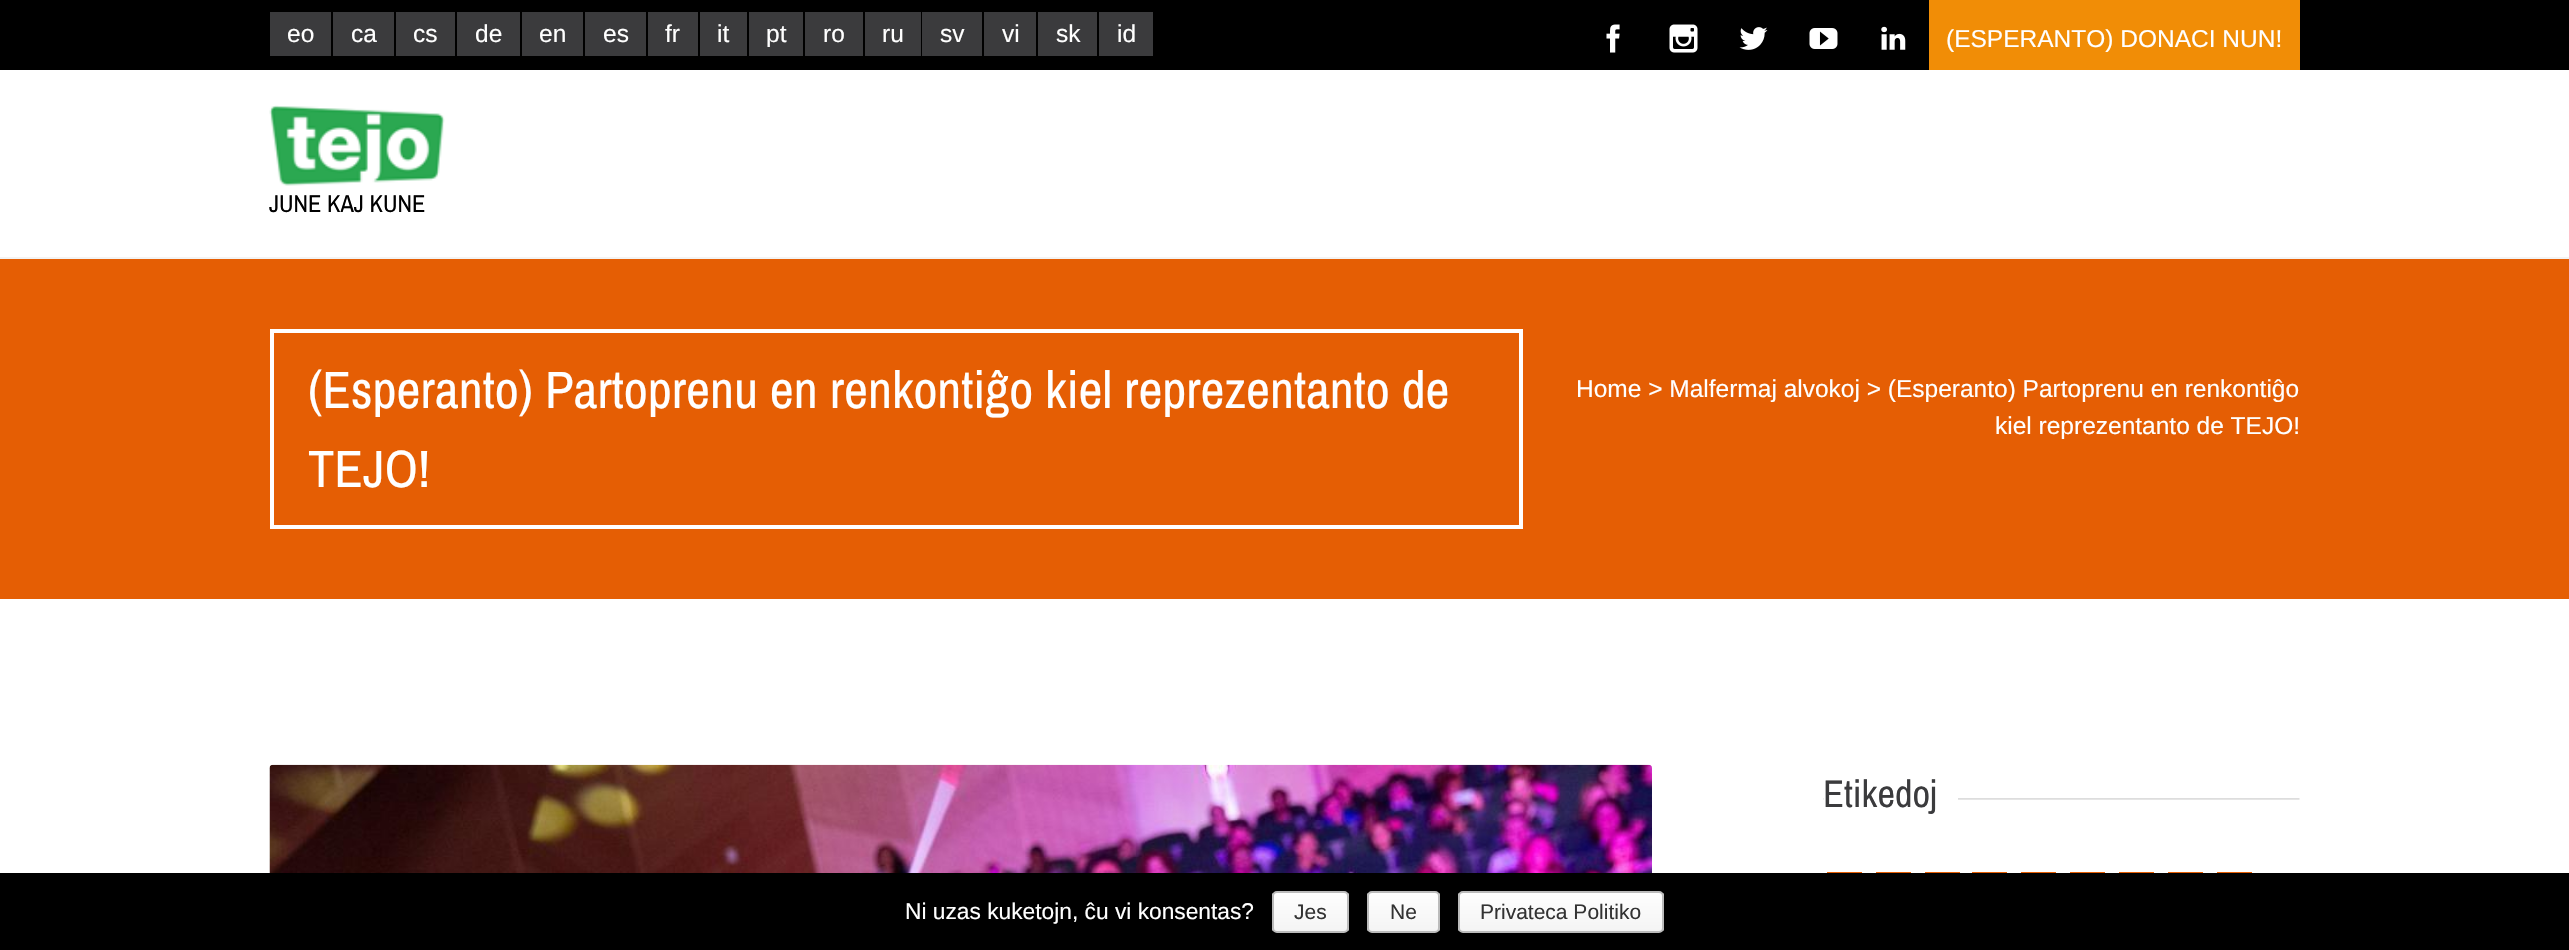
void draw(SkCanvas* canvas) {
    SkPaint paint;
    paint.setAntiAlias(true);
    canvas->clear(0xFFFFFFFF);
    paint.setColor(0xFF000000);
    canvas->drawRect(SkRect::MakeXYWH(0, 0, 2569, 70), paint);
    paint.setColor(0xFF3B3B3D);
    canvas->drawRect(SkRect::MakeXYWH(270, 12, 61, 44), paint);
    SkFont font1(fontMgr->matchFamilyStyle("Liberation Sans", SkFontStyle::Normal()), 24.5f);
    font1.setSubpixel(true);
    paint.setColor(0xFFFFFFFF);
    canvas->drawString("eo", 287, 42, font1, paint);
    paint.setColor(0xFF3B3B3D);
    canvas->drawRect(SkRect::MakeXYWH(333, 12, 61, 44), paint);
    paint.setColor(0xFFFFFFFF);
    canvas->drawString("ca", 351, 42, font1, paint);
    paint.setColor(0xFF3B3B3D);
    canvas->drawRect(SkRect::MakeXYWH(396, 12, 59, 44), paint);
    paint.setColor(0xFFFFFFFF);
    canvas->drawString("cs", 413, 42, font1, paint);
    paint.setColor(0xFF3B3B3D);
    canvas->drawRect(SkRect::MakeXYWH(457, 12, 63, 44), paint);
    paint.setColor(0xFFFFFFFF);
    canvas->drawString("de", 475, 42, font1, paint);
    paint.setColor(0xFF3B3B3D);
    canvas->drawRect(SkRect::MakeXYWH(522, 12, 61, 44), paint);
    paint.setColor(0xFFFFFFFF);
    canvas->drawString("en", 539, 42, font1, paint);
    paint.setColor(0xFF3B3B3D);
    canvas->drawRect(SkRect::MakeXYWH(585, 12, 61, 44), paint);
    paint.setColor(0xFFFFFFFF);
    canvas->drawString("es", 603, 42, font1, paint);
    paint.setColor(0xFF3B3B3D);
    canvas->drawRect(SkRect::MakeXYWH(648, 12, 50, 44), paint);
    paint.setColor(0xFFFFFFFF);
    canvas->drawString("fr", 665, 42, font1, paint);
    paint.setColor(0xFF3B3B3D);
    canvas->drawRect(SkRect::MakeXYWH(700, 12, 47, 44), paint);
    paint.setColor(0xFFFFFFFF);
    canvas->drawString("it", 717, 42, font1, paint);
    paint.setColor(0xFF3B3B3D);
    canvas->drawRect(SkRect::MakeXYWH(749, 12, 54, 44), paint);
    paint.setColor(0xFFFFFFFF);
    canvas->drawString("pt", 766, 42, font1, paint);
    paint.setColor(0xFF3B3B3D);
    canvas->drawRect(SkRect::MakeXYWH(805, 12, 58, 44), paint);
    paint.setColor(0xFFFFFFFF);
    canvas->drawString("ro", 823, 42, font1, paint);
    paint.setColor(0xFF3B3B3D);
    canvas->drawRect(SkRect::MakeXYWH(865, 12, 56, 44), paint);
    paint.setColor(0xFFFFFFFF);
    canvas->drawString("ru", 882, 42, font1, paint);
    paint.setColor(0xFF3B3B3D);
    canvas->drawRect(SkRect::MakeXYWH(922, 12, 60, 44), paint);
    paint.setColor(0xFFFFFFFF);
    canvas->drawString("sv", 940, 42, font1, paint);
    paint.setColor(0xFF3B3B3D);
    canvas->drawRect(SkRect::MakeXYWH(984, 12, 52, 44), paint);
    paint.setColor(0xFFFFFFFF);
    canvas->drawString("vi", 1002, 42, font1, paint);
    paint.setColor(0xFF3B3B3D);
    canvas->drawRect(SkRect::MakeXYWH(1038, 12, 59, 44), paint);
    paint.setColor(0xFFFFFFFF);
    canvas->drawString("sk", 1056, 42, font1, paint);
    paint.setColor(0xFF3B3B3D);
    canvas->drawRect(SkRect::MakeXYWH(1099, 12, 54, 44), paint);
    paint.setColor(0xFFFFFFFF);
    canvas->drawString("id", 1117, 42, font1, paint);
    canvas->drawImageRect(SkImages::DeferredFromEncodedData(SkData::MakeFromFileName("img1.png")), SkRect::MakeXYWH(1606, 24, 14, 29), SkSamplingOptions());
    canvas->drawImageRect(SkImages::DeferredFromEncodedData(SkData::MakeFromFileName("img2.png")), SkRect::MakeXYWH(1669, 24, 29, 29), SkSamplingOptions());
    canvas->drawImageRect(SkImages::DeferredFromEncodedData(SkData::MakeFromFileName("img3.png")), SkRect::MakeXYWH(1739, 27, 29, 23), SkSamplingOptions());
    canvas->drawImageRect(SkImages::DeferredFromEncodedData(SkData::MakeFromFileName("img4.png")), SkRect::MakeXYWH(1809, 28, 29, 21), SkSamplingOptions());
    canvas->drawImageRect(SkImages::DeferredFromEncodedData(SkData::MakeFromFileName("img5.png")), SkRect::MakeXYWH(1881, 26, 25, 24), SkSamplingOptions());
    paint.setColor(0xFFF18D06);
    canvas->drawRect(SkRect::MakeXYWH(1929, 0, 371, 70), paint);
    paint.setColor(0xFFFFFFFF);
    canvas->drawString("(ESPERANTO) DONACI NUN!", 1946, 47, font1, paint);
    paint.setColor(0xFFF3F3F3);
    canvas->drawRect(SkRect::MakeXYWH(0, 257, 2569, 2), paint);
    canvas->drawImageRect(SkImages::DeferredFromEncodedData(SkData::MakeFromFileName("img6.png")), SkRect::MakeXYWH(269, 105, 176, 81), SkSamplingOptions());
    SkFont font2(fontMgr->matchFamilyStyle("Archivo Narrow", SkFontStyle::Normal()), 24.5f);
    font2.setSubpixel(true);
    paint.setColor(0xFF000000);
    canvas->drawString("JUNE KAJ KUNE", 269, 212, font2, paint);
    paint.setColor(0xFFE55E04);
    canvas->drawRect(SkRect::MakeXYWH(0, 259, 2569, 340), paint);
    paint.setStyle(SkPaint::kStroke_Style);
    paint.setStrokeWidth(4);
    paint.setColor(0xFFFFFFFF);
    canvas->drawRect(SkRect::MakeXYWH(272, 331, 1249, 196), paint);
    SkFont font3(fontMgr->matchFamilyStyle("Archivo Narrow", SkFontStyle::Normal()), 52.5f);
    font3.setSubpixel(true);
    paint.setStyle(SkPaint::kFill_Style);
    canvas->drawString("(Esperanto) Partoprenu en renkontiĝo kiel reprezentanto de", 308, 408, font3, paint);
    canvas->drawString("TEJO!", 308, 487, font3, paint);
    canvas->drawString("Home > Malfermaj alvokoj > (Esperanto) Partoprenu en renkontiĝo", 1576, 397, font1, paint);
    canvas->drawString("kiel reprezentanto de TEJO!", 1995, 434, font1, paint);
    canvas->drawImageRect(SkImages::DeferredFromEncodedData(SkData::MakeFromFileName("img7.png")), SkRect::MakeXYWH(269, 764, 1383, 109), SkSamplingOptions());
    canvas->drawImageRect(SkImages::DeferredFromEncodedData(SkData::MakeFromFileName("img8.png")), SkRect::MakeXYWH(1823, 798, 477, 2), SkSamplingOptions());
    canvas->drawRect(SkRect::MakeXYWH(1824, 798, 134, 2), paint);
    SkFont font4(fontMgr->matchFamilyStyle("Archivo Narrow", SkFontStyle::Normal()), 38.5f);
    font4.setSubpixel(true);
    paint.setColor(0xFF3B3B3D);
    canvas->drawString("Etikedoj", 1823, 807, font4, paint);
    paint.setColor(0xFFE55E04);
    canvas->drawRect(SkRect::MakeXYWH(1827, 872, 35, 1), paint);
    canvas->drawRect(SkRect::MakeXYWH(1876, 872, 35, 1), paint);
    canvas->drawRect(SkRect::MakeXYWH(1925, 872, 35, 1), paint);
    canvas->drawRect(SkRect::MakeXYWH(1972, 872, 35, 1), paint);
    canvas->drawRect(SkRect::MakeXYWH(2021, 872, 35, 1), paint);
    canvas->drawRect(SkRect::MakeXYWH(2070, 872, 35, 1), paint);
    canvas->drawRect(SkRect::MakeXYWH(2119, 872, 35, 1), paint);
    canvas->drawRect(SkRect::MakeXYWH(2168, 872, 35, 1), paint);
    canvas->drawRect(SkRect::MakeXYWH(2217, 872, 35, 1), paint);
    paint.setColor(0xFF000000);
    canvas->drawRect(SkRect::MakeXYWH(0, 873, 2569, 77), paint);
    SkFont font5(fontMgr->matchFamilyStyle("Liberation Sans", SkFontStyle::Normal()), 22.75f);
    font5.setSubpixel(true);
    paint.setColor(0xFFFFFFFF);
    canvas->drawString("Ni uzas kuketojn, ĉu vi konsentas?", 905, 919, font5, paint);
    canvas->save();
    canvas->clipPath(SkPathBuilder().moveTo(1277, 891).lineTo(1344, 891).cubicTo(1347, 891, 1349, 893, 1349, 896).lineTo(1349, 928).cubicTo(1349, 931, 1347, 933, 1344, 933).lineTo(1277, 933).cubicTo(1274, 933, 1272, 931, 1272, 928).lineTo(1272, 896).cubicTo(1272, 893, 1274, 891, 1277, 891).close().detach(), true);
    {
        const SkColor colors[] = {0xFFFEFEFE, 0xFFF4F4F4};
        const float stops[] = {0, 1};
        const SkPoint ends[] = {{1311, 893}, {1311, 931}};
        paint.setShader(SkGradientShader::MakeLinear(ends, colors, stops, 2, SkTileMode::kClamp));
        paint.setAlpha(255);
    }
    canvas->drawRect(SkRect::MakeXYWH(1272, 893, 77, 38), paint);
    canvas->restore();
    paint.setStyle(SkPaint::kStroke_Style);
    paint.setStrokeWidth(2);
    paint.setShader(nullptr);
    paint.setColor(0xFFBBBBBB);
    canvas->drawRoundRect(SkRect::MakeXYWH(1273, 892, 75, 40), 4, 4, paint);
    SkFont font6(fontMgr->matchFamilyStyle("Liberation Sans", SkFontStyle::Normal()), 21);
    font6.setSubpixel(true);
    paint.setStyle(SkPaint::kFill_Style);
    paint.setColor(0xFF333333);
    canvas->drawString("Jes", 1294, 919, font6, paint);
    canvas->save();
    canvas->clipPath(SkPathBuilder().moveTo(1372, 891).lineTo(1435, 891).cubicTo(1438, 891, 1440, 893, 1440, 896).lineTo(1440, 928).cubicTo(1440, 931, 1438, 933, 1435, 933).lineTo(1372, 933).cubicTo(1369, 933, 1367, 931, 1367, 928).lineTo(1367, 896).cubicTo(1367, 893, 1369, 891, 1372, 891).close().detach(), true);
    {
        const SkColor colors[] = {0xFFFEFEFE, 0xFFF4F4F4};
        const float stops[] = {0, 1};
        const SkPoint ends[] = {{1404, 893}, {1404, 931}};
        paint.setShader(SkGradientShader::MakeLinear(ends, colors, stops, 2, SkTileMode::kClamp));
        paint.setAlpha(255);
    }
    canvas->drawRect(SkRect::MakeXYWH(1367, 893, 73, 38), paint);
    canvas->restore();
    paint.setStyle(SkPaint::kStroke_Style);
    paint.setShader(nullptr);
    paint.setColor(0xFFBBBBBB);
    canvas->drawRoundRect(SkRect::MakeXYWH(1368, 892, 71, 40), 4, 4, paint);
    paint.setStyle(SkPaint::kFill_Style);
    paint.setColor(0xFF333333);
    canvas->drawString("Ne", 1390, 919, font6, paint);
    canvas->save();
    canvas->clipPath(SkPathBuilder().moveTo(1463, 891).lineTo(1659, 891).cubicTo(1662, 891, 1664, 893, 1664, 896).lineTo(1664, 928).cubicTo(1664, 931, 1662, 933, 1659, 933).lineTo(1463, 933).cubicTo(1460, 933, 1458, 931, 1458, 928).lineTo(1458, 896).cubicTo(1458, 893, 1460, 891, 1463, 891).close().detach(), true);
    {
        const SkColor colors[] = {0xFFFEFEFE, 0xFFF4F4F4};
        const float stops[] = {0, 1};
        const SkPoint ends[] = {{1561, 893}, {1561, 931}};
        paint.setShader(SkGradientShader::MakeLinear(ends, colors, stops, 2, SkTileMode::kClamp));
        paint.setAlpha(255);
    }
    canvas->drawRect(SkRect::MakeXYWH(1458, 893, 206, 38), paint);
    canvas->restore();
    paint.setStyle(SkPaint::kStroke_Style);
    paint.setShader(nullptr);
    paint.setColor(0xFFBBBBBB);
    canvas->drawRoundRect(SkRect::MakeXYWH(1459, 892, 204, 40), 4, 4, paint);
    paint.setStyle(SkPaint::kFill_Style);
    paint.setColor(0xFF333333);
    canvas->drawString("Privateca Politiko", 1480, 919, font6, paint);
}
